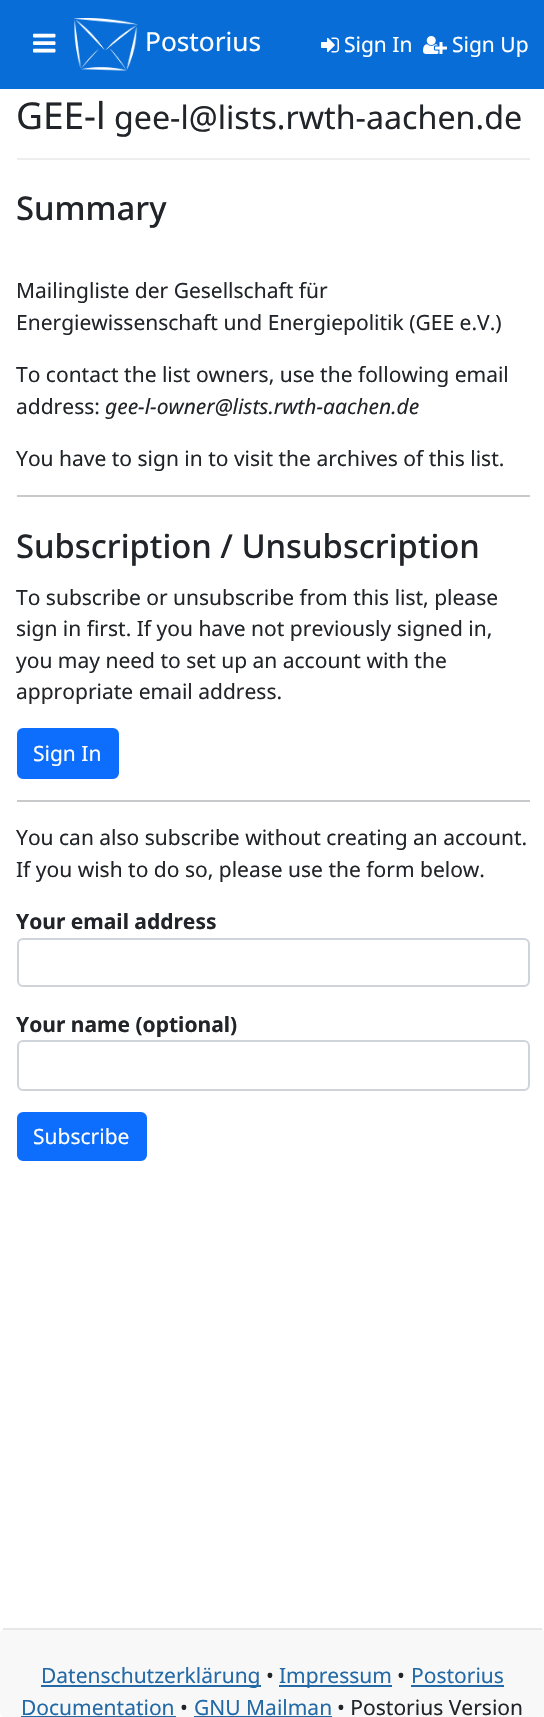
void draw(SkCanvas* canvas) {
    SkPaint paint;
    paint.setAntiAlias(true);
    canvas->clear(0xFFFFFFFF);
    paint.setColor(0xFF086DD7);
    canvas->drawRect(SkRect::MakeXYWH(0, 0, 544, 89), paint);
    canvas->drawImageRect(SkImages::DeferredFromEncodedData(SkData::MakeFromFileName("img1.png")), SkRect::MakeXYWH(33, 33, 23, 20), SkSamplingOptions());
    canvas->drawImageRect(SkImages::DeferredFromEncodedData(SkData::MakeFromFileName("img2.png")), SkRect::MakeXYWH(73, 18, 65, 53), SkSamplingOptions());
    SkFont font1(fontMgr->matchFamilyStyle("Noto Sans", SkFontStyle::Normal()), 26.25f);
    font1.setSubpixel(true);
    paint.setColor(0xFFFFFFFF);
    canvas->drawString("Postorius", 145, 51, font1, paint);
    canvas->drawImageRect(SkImages::DeferredFromEncodedData(SkData::MakeFromFileName("img3.png")), SkRect::MakeXYWH(321, 37, 18, 16), SkSamplingOptions());
    SkFont font2(fontMgr->matchFamilyStyle("Noto Sans", SkFontStyle::Normal()), 21);
    font2.setSubpixel(true);
    canvas->drawString("Sign In", 344, 52, font2, paint);
    canvas->drawImageRect(SkImages::DeferredFromEncodedData(SkData::MakeFromFileName("img4.png")), SkRect::MakeXYWH(423, 36, 24, 18), SkSamplingOptions());
    canvas->drawString("Sign Up", 452, 52, font2, paint);
    paint.setColor(0xFFEEEEEE);
    canvas->drawRect(SkRect::MakeXYWH(17, 158, 513, 2), paint);
    SkFont font3(fontMgr->matchFamilyStyle("Noto Sans", SkFontStyle::Normal()), 37);
    font3.setSubpixel(true);
    paint.setColor(0xFF212529);
    canvas->drawString("GEE-l", 16, 129, font3, paint);
    SkFont font4(fontMgr->matchFamilyStyle("Noto Sans", SkFontStyle::Normal()), 32.2f);
    font4.setSubpixel(true);
    canvas->drawString("gee-l@lists.rwth-aachen.de", 114, 129, font4, paint);
    SkFont font5(fontMgr->matchFamilyStyle("Noto Sans", SkFontStyle(500, SkFontStyle::kNormal_Width, SkFontStyle::kUpright_Slant)), 32.75f);
    font5.setSubpixel(true);
    canvas->drawString("Summary", 16, 220, font5, paint);
    canvas->drawString("Mailingliste der Gesellschaft für", 16, 298, font2, paint);
    canvas->drawString("Energiewissenschaft und Energiepolitik (GEE e.V.)", 16, 330, font2, paint);
    canvas->drawString("To contact the list owners, use the following email", 16, 382, font2, paint);
    canvas->drawString("address:", 16, 414, font2, paint);
    SkFont font6(fontMgr->matchFamilyStyle("Noto Sans", SkFontStyle::Italic()), 21);
    font6.setSubpixel(true);
    canvas->drawString("gee-l-owner@lists.rwth-aachen.de", 105, 414, font6, paint);
    canvas->drawString("You have to sign in to visit the archives of this list.", 16, 466, font2, paint);
    paint.setColor(0xFFC8C9CA);
    canvas->drawRect(SkRect::MakeXYWH(17, 495, 513, 2), paint);
    paint.setColor(0xFF212529);
    canvas->drawString("Subscription / Unsubscription", 16, 558, font5, paint);
    canvas->drawString("To subscribe or unsubscribe from this list, please", 16, 605, font2, paint);
    canvas->drawString("sign in first. If you have not previously signed in,", 16, 636, font2, paint);
    canvas->drawString("you may need to set up an account with the", 16, 668, font2, paint);
    canvas->drawString("appropriate email address.", 16, 699, font2, paint);
    paint.setColor(0xFF0D6EFD);
    canvas->drawRoundRect(SkRect::MakeXYWH(18, 729, 100, 49), 5, 5, paint);
    paint.setStyle(SkPaint::kStroke_Style);
    paint.setStrokeWidth(2);
    canvas->drawRoundRect(SkRect::MakeXYWH(18, 729, 100, 49), 5, 5, paint);
    paint.setStyle(SkPaint::kFill_Style);
    paint.setColor(0xFFFFFFFF);
    canvas->drawString("Sign In", 33, 761, font2, paint);
    paint.setColor(0xFFC8C9CA);
    canvas->drawRect(SkRect::MakeXYWH(17, 800, 513, 2), paint);
    paint.setColor(0xFF212529);
    canvas->drawString("You can also subscribe without creating an account.", 16, 845, font2, paint);
    canvas->drawString("If you wish to do so, please use the form below.", 16, 877, font2, paint);
    SkFont font7(fontMgr->matchFamilyStyle("Noto Sans", SkFontStyle::Bold()), 21);
    font7.setSubpixel(true);
    canvas->drawString("Your email address", 16, 929, font7, paint);
    paint.setStyle(SkPaint::kStroke_Style);
    paint.setColor(0xFFCED4DA);
    canvas->drawRoundRect(SkRect::MakeXYWH(18, 939, 511, 47), 5, 5, paint);
    paint.setStyle(SkPaint::kFill_Style);
    paint.setColor(0xFF212529);
    canvas->drawString("Your name (optional)", 16, 1032, font7, paint);
    paint.setStyle(SkPaint::kStroke_Style);
    paint.setColor(0xFFCED4DA);
    canvas->drawRoundRect(SkRect::MakeXYWH(18, 1041, 511, 49), 5, 5, paint);
    paint.setStyle(SkPaint::kFill_Style);
    paint.setColor(0xFF0D6EFD);
    canvas->drawRoundRect(SkRect::MakeXYWH(18, 1113, 128, 47), 5, 5, paint);
    paint.setStyle(SkPaint::kStroke_Style);
    canvas->drawRoundRect(SkRect::MakeXYWH(18, 1113, 128, 47), 5, 5, paint);
    paint.setStyle(SkPaint::kFill_Style);
    paint.setColor(0xFFFFFFFF);
    canvas->drawString("Subscribe", 33, 1144, font2, paint);
    paint.setColor(0xFFF8F8F8);
    canvas->drawRoundRect(SkRect::MakeXYWH(0, 1628, 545, 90), 6, 6, paint);
    paint.setColor(0xFFE7E7E7);
    canvas->drawRect(SkRect::MakeXYWH(3, 1628, 539, 2), paint);
    paint.setColor(0xFF2269A6);
    canvas->drawRect(SkRect::MakeXYWH(41, 1685, 220, 2), paint);
    canvas->drawString("Datenschutzerklärung", 41, 1683, font2, paint);
    paint.setColor(0xFF212529);
    canvas->drawString("•", 266, 1683, font2, paint);
    paint.setColor(0xFF2269A6);
    canvas->drawRect(SkRect::MakeXYWH(279, 1685, 113, 2), paint);
    canvas->drawString("Impressum", 279, 1683, font2, paint);
    paint.setColor(0xFF212529);
    canvas->drawString("•", 397, 1683, font2, paint);
    paint.setColor(0xFF2269A6);
    canvas->drawString("Postorius", 411, 1683, font2, paint);
    canvas->drawRect(SkRect::MakeXYWH(411, 1685, 93, 2), paint);
    canvas->drawString("Documentation", 21, 1715, font2, paint);
    canvas->drawRect(SkRect::MakeXYWH(21, 1716, 155, 1), paint);
    paint.setColor(0xFF212529);
    canvas->drawString("•", 180, 1715, font2, paint);
    paint.setColor(0xFF2269A6);
    canvas->drawString("GNU Mailman", 194, 1715, font2, paint);
    canvas->drawRect(SkRect::MakeXYWH(194, 1716, 138, 1), paint);
    paint.setColor(0xFF212529);
    canvas->drawString("• Postorius Version", 337, 1715, font2, paint);
}
